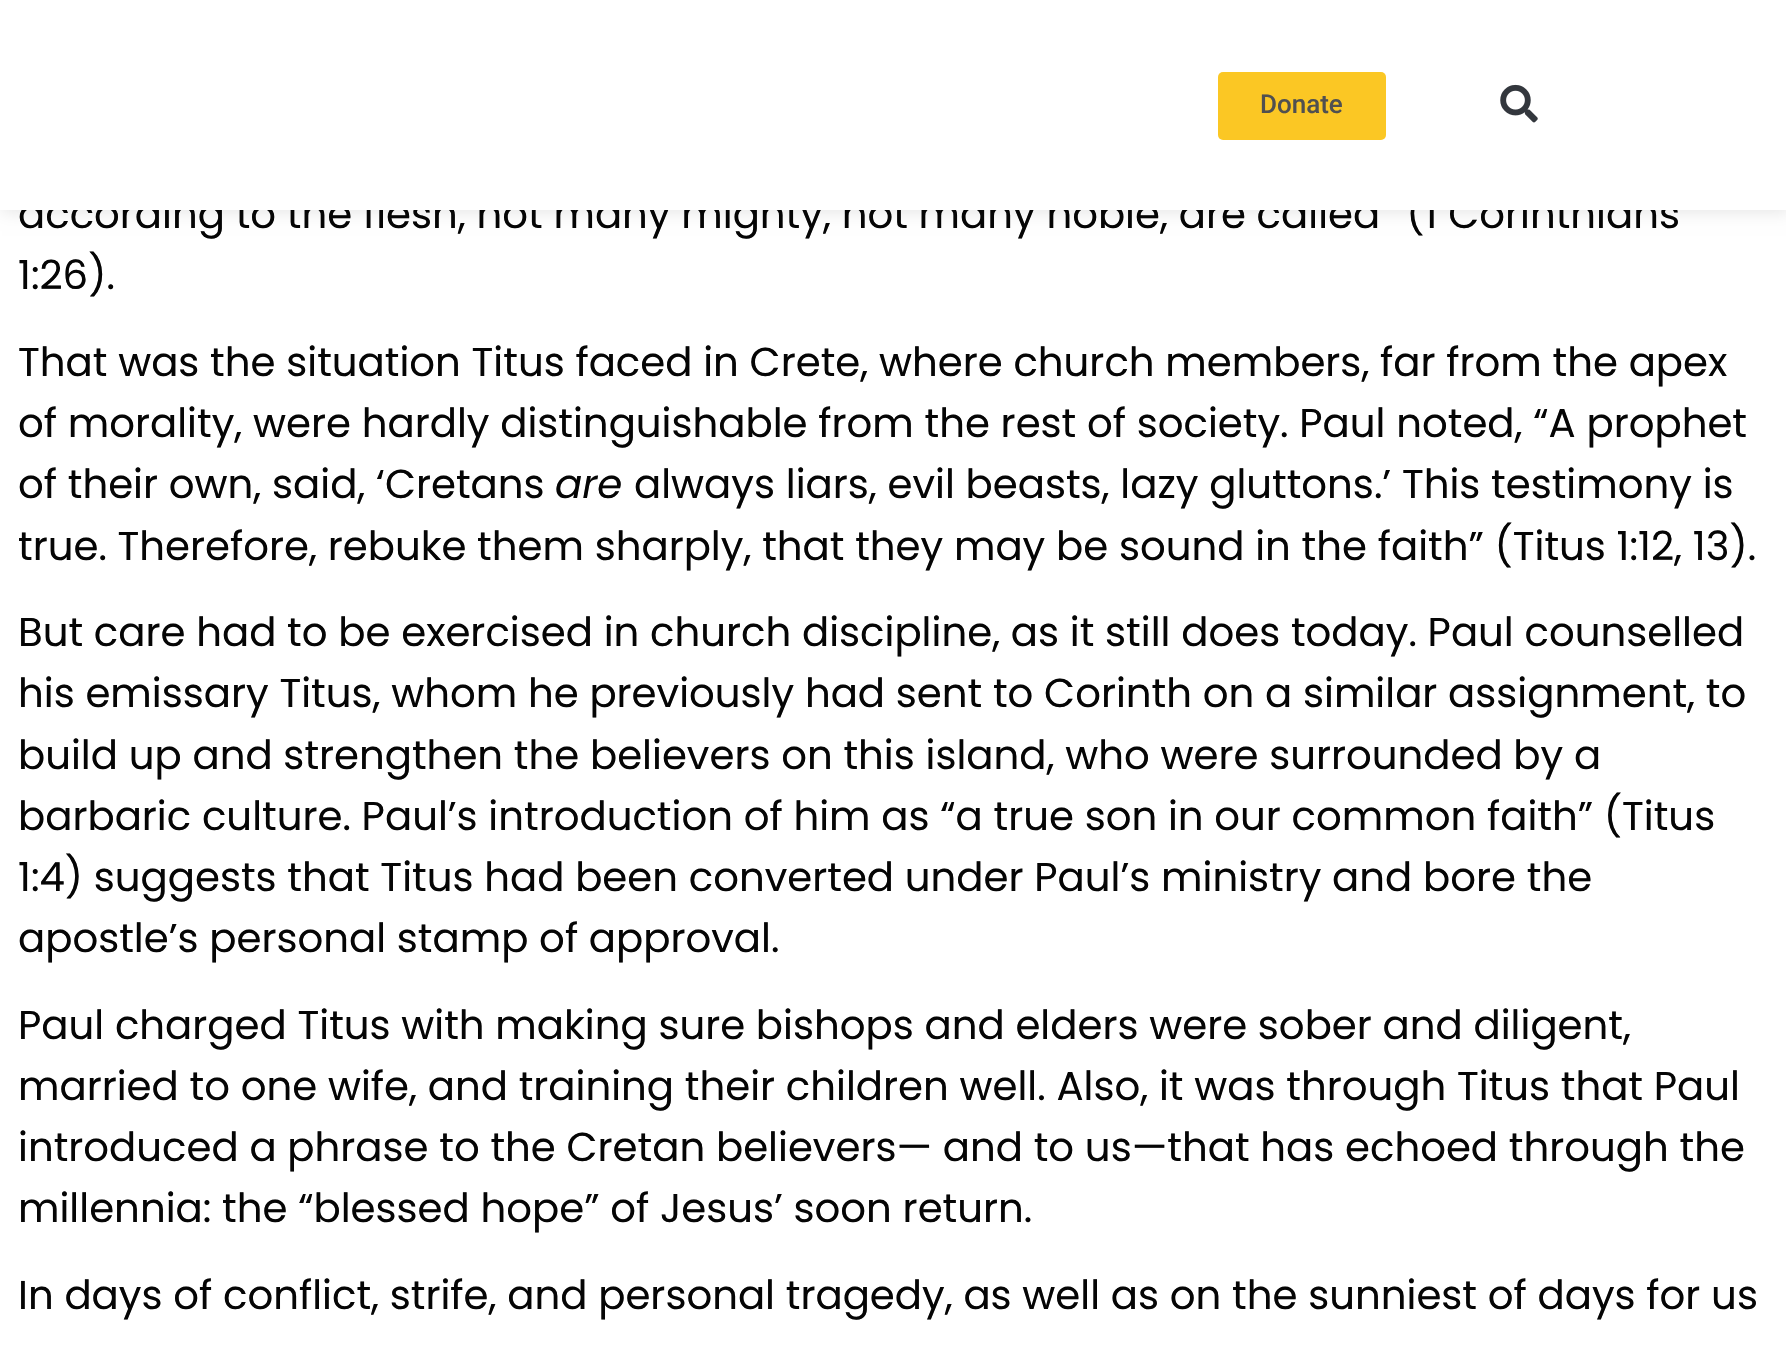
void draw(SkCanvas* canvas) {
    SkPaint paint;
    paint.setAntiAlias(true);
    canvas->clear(0xFFFFFFFF);
    paint.setColor(0x1A000000);
    paint.setMaskFilter(SkMaskFilter::MakeBlur(kNormal_SkBlurStyle, 8));
    canvas->drawRect(SkRect::MakeXYWH(2, 2, 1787, 210), paint);
    paint.setMaskFilter(nullptr);
    SkFont font1(fontMgr->matchFamilyStyle("Poppins", SkFontStyle::Normal()), 40.25f);
    font1.setSubpixel(true);
    paint.setColor(0xFF050505);
    canvas->drawString("according to the flesh, not many mighty, not many noble, are called” (1 Corinthians", 18, 228, font1, paint);
    paint.setColor(0xFFFFFFFF);
    canvas->drawRect(SkRect::MakeXYWH(0, 0, 1786, 210), paint);
    paint.setColor(0xFFFBC724);
    canvas->drawRoundRect(SkRect::MakeXYWH(1218, 72, 168, 68), 5, 5, paint);
    SkFont font2(fontMgr->matchFamilyStyle("Roboto", SkFontStyle(500, SkFontStyle::kNormal_Width, SkFontStyle::kUpright_Slant)), 26);
    font2.setSubpixel(true);
    paint.setColor(0xFF505050);
    canvas->drawString("Donate", 1260, 113, font2, paint);
    canvas->drawImageRect(SkImages::DeferredFromEncodedData(SkData::MakeFromFileName("img1.png")), SkRect::MakeXYWH(1500, 84, 38, 39), SkSamplingOptions());
    paint.setColor(0xFF050505);
    canvas->drawString("1:26).", 18, 289, font1, paint);
    canvas->drawString("That was the situation Titus faced in Crete, where church members, far from the apex", 18, 376, font1, paint);
    canvas->drawString("of morality, were hardly distinguishable from the rest of society. Paul noted, “A prophet", 18, 437, font1, paint);
    canvas->drawString("of their own, said, ‘Cretans", 18, 498, font1, paint);
    SkFont font3(fontMgr->matchFamilyStyle("Poppins", SkFontStyle::Italic()), 40.25f);
    font3.setSubpixel(true);
    canvas->drawString("are", 555, 498, font3, paint);
    canvas->drawString("always liars, evil beasts, lazy gluttons.’ This testimony is", 634, 498, font1, paint);
    canvas->drawString("true. Therefore, rebuke them sharply, that they may be sound in the faith” (Titus 1:12, 13).", 18, 560, font1, paint);
    canvas->drawString("But care had to be exercised in church discipline, as it still does today. Paul counselled", 18, 646, font1, paint);
    canvas->drawString("his emissary Titus, whom he previously had sent to Corinth on a similar assignment, to", 18, 707, font1, paint);
    canvas->drawString("build up and strengthen the believers on this island, who were surrounded by a", 18, 769, font1, paint);
    canvas->drawString("barbaric culture. Paul’s introduction of him as “a true son in our common faith” (Titus", 18, 830, font1, paint);
    canvas->drawString("1:4) suggests that Titus had been converted under Paul’s ministry and bore the", 18, 891, font1, paint);
    canvas->drawString("apostle’s personal stamp of approval.", 18, 952, font1, paint);
    canvas->drawString("Paul charged Titus with making sure bishops and elders were sober and diligent,", 18, 1039, font1, paint);
    canvas->drawString("married to one wife, and training their children well. Also, it was through Titus that Paul", 18, 1100, font1, paint);
    canvas->drawString("introduced a phrase to the Cretan believers— and to us—that has echoed through the", 18, 1161, font1, paint);
    canvas->drawString("millennia: the “blessed hope” of Jesus’ soon return.", 18, 1222, font1, paint);
    canvas->drawString("In days of conflict, strife, and personal tragedy, as well as on the sunniest of days for us", 18, 1309, font1, paint);
}
